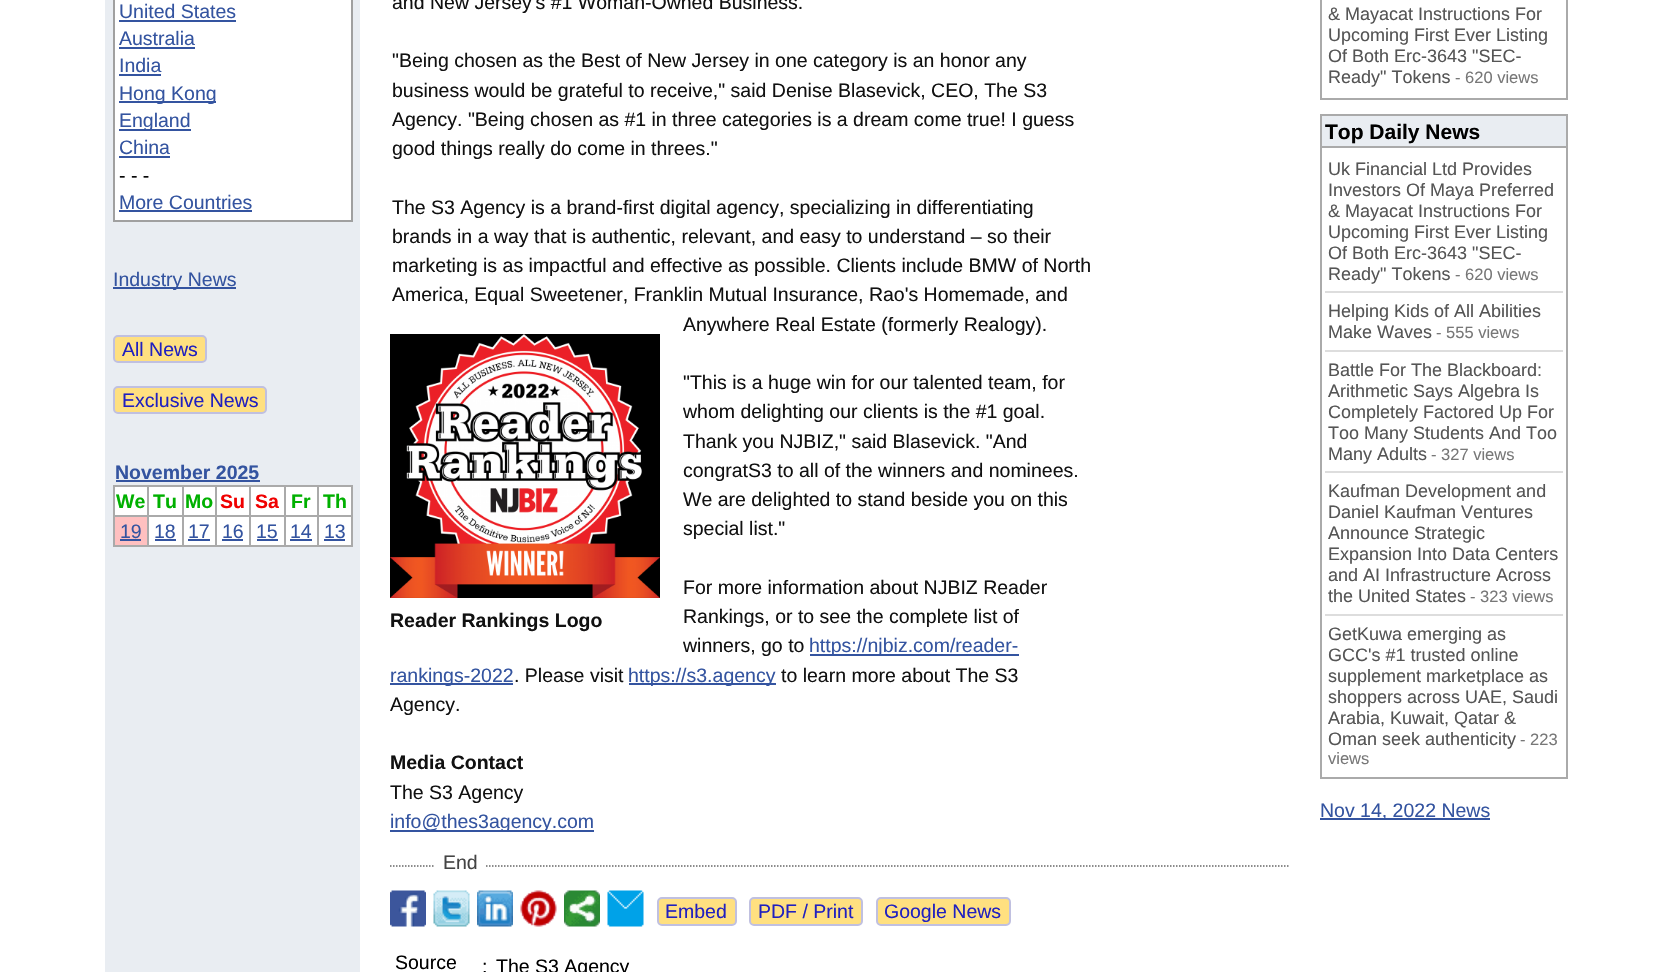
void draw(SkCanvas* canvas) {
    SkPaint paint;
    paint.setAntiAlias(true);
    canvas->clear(0xFFFFFFFF);
    paint.setColor(0xFFE9EDF2);
    canvas->drawRect(SkRect::MakeXYWH(105, 0, 255, 972), paint);
    paint.setColor(0xFFFFFFFF);
    canvas->drawRect(SkRect::MakeXYWH(114, -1, 238, 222), paint);
    paint.setStyle(SkPaint::kStroke_Style);
    paint.setStrokeWidth(2);
    paint.setColor(0xFFA0A0A0);
    canvas->drawRect(SkRect::MakeXYWH(114, -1, 238, 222), paint);
    SkFont font1(fontMgr->matchFamilyStyle("Liberation Sans", SkFontStyle::Normal()), 19.5f);
    font1.setSubpixel(true);
    paint.setStyle(SkPaint::kFill_Style);
    paint.setColor(0xFF3454A0);
    canvas->drawString("United States", 119, 18, font1, paint);
    canvas->drawRect(SkRect::MakeXYWH(119, 20, 117, 2), paint);
    canvas->drawString("Australia", 119, 45, font1, paint);
    canvas->drawRect(SkRect::MakeXYWH(119, 47, 76, 2), paint);
    canvas->drawString("India", 119, 72, font1, paint);
    canvas->drawRect(SkRect::MakeXYWH(119, 74, 42, 2), paint);
    canvas->drawRect(SkRect::MakeXYWH(119, 101, 97, 2), paint);
    canvas->drawString("Hong Kong", 119, 100, font1, paint);
    canvas->drawRect(SkRect::MakeXYWH(119, 129, 72, 2), paint);
    canvas->drawString("England", 119, 127, font1, paint);
    canvas->drawString("China", 119, 154, font1, paint);
    canvas->drawRect(SkRect::MakeXYWH(119, 156, 51, 2), paint);
    paint.setColor(0xFF000000);
    canvas->drawString("- - -", 119, 182, font1, paint);
    paint.setColor(0xFF3454A0);
    canvas->drawString("More Countries", 119, 209, font1, paint);
    canvas->drawRect(SkRect::MakeXYWH(119, 210, 133, 2), paint);
    canvas->drawRect(SkRect::MakeXYWH(113, 287, 123, 2), paint);
    canvas->drawString("Industry News", 113, 286, font1, paint);
    paint.setColor(0xFFFFE080);
    canvas->drawRoundRect(SkRect::MakeXYWH(114, 336, 92, 26), 4, 4, paint);
    paint.setStyle(SkPaint::kStroke_Style);
    paint.setColor(0xFFC0C0E0);
    canvas->drawRoundRect(SkRect::MakeXYWH(114, 336, 92, 26), 4, 4, paint);
    paint.setStyle(SkPaint::kFill_Style);
    paint.setColor(0xFF2020C0);
    canvas->drawString("All News", 122, 356, font1, paint);
    paint.setColor(0xFFFFE080);
    canvas->drawRoundRect(SkRect::MakeXYWH(114, 387, 152, 26), 4, 4, paint);
    paint.setStyle(SkPaint::kStroke_Style);
    paint.setColor(0xFFC0C0E0);
    canvas->drawRoundRect(SkRect::MakeXYWH(114, 387, 152, 26), 4, 4, paint);
    paint.setStyle(SkPaint::kFill_Style);
    paint.setColor(0xFF2020C0);
    canvas->drawString("Exclusive News", 122, 407, font1, paint);
    SkFont font2(fontMgr->matchFamilyStyle("Liberation Sans", SkFontStyle::Bold()), 19.5f);
    font2.setSubpixel(true);
    paint.setColor(0xFF3454A0);
    canvas->drawString("November 2025", 115, 479, font2, paint);
    canvas->drawRect(SkRect::MakeXYWH(116, 480, 144, 2), paint);
    paint.setColor(0xFFFFFFFF);
    canvas->drawRect(SkRect::MakeXYWH(115, 487, 32, 28), paint);
    paint.setColor(0xFFAAAAAA);
    canvas->drawRect(SkRect::MakeXYWH(317, 485, 36, 2), paint);
    canvas->drawRect(SkRect::MakeXYWH(317, 515, 36, 2), paint);
    canvas->drawRect(SkRect::MakeXYWH(351, 515, 2, 31), paint);
    canvas->drawRect(SkRect::MakeXYWH(317, 545, 36, 2), paint);
    canvas->drawRect(SkRect::MakeXYWH(317, 515, 2, 31), paint);
    canvas->drawRect(SkRect::MakeXYWH(284, 515, 34, 2), paint);
    canvas->drawRect(SkRect::MakeXYWH(317, 485, 2, 31), paint);
    canvas->drawRect(SkRect::MakeXYWH(284, 485, 34, 2), paint);
    canvas->drawRect(SkRect::MakeXYWH(284, 545, 34, 2), paint);
    canvas->drawRect(SkRect::MakeXYWH(284, 515, 2, 31), paint);
    canvas->drawRect(SkRect::MakeXYWH(249, 515, 36, 2), paint);
    canvas->drawRect(SkRect::MakeXYWH(284, 485, 2, 31), paint);
    canvas->drawRect(SkRect::MakeXYWH(249, 485, 36, 2), paint);
    canvas->drawRect(SkRect::MakeXYWH(249, 545, 36, 2), paint);
    canvas->drawRect(SkRect::MakeXYWH(249, 515, 2, 31), paint);
    canvas->drawRect(SkRect::MakeXYWH(215, 515, 36, 2), paint);
    canvas->drawRect(SkRect::MakeXYWH(249, 485, 2, 31), paint);
    canvas->drawRect(SkRect::MakeXYWH(215, 485, 36, 2), paint);
    canvas->drawRect(SkRect::MakeXYWH(215, 545, 36, 2), paint);
    canvas->drawRect(SkRect::MakeXYWH(215, 515, 2, 31), paint);
    canvas->drawRect(SkRect::MakeXYWH(182, 515, 34, 2), paint);
    canvas->drawRect(SkRect::MakeXYWH(215, 485, 2, 31), paint);
    canvas->drawRect(SkRect::MakeXYWH(182, 485, 34, 2), paint);
    canvas->drawRect(SkRect::MakeXYWH(182, 545, 34, 2), paint);
    canvas->drawRect(SkRect::MakeXYWH(182, 515, 2, 31), paint);
    canvas->drawRect(SkRect::MakeXYWH(147, 515, 36, 2), paint);
    canvas->drawRect(SkRect::MakeXYWH(182, 485, 2, 31), paint);
    canvas->drawRect(SkRect::MakeXYWH(147, 485, 36, 2), paint);
    canvas->drawRect(SkRect::MakeXYWH(147, 545, 36, 2), paint);
    canvas->drawRect(SkRect::MakeXYWH(147, 515, 2, 31), paint);
    canvas->drawRect(SkRect::MakeXYWH(113, 515, 36, 2), paint);
    canvas->drawRect(SkRect::MakeXYWH(147, 485, 2, 31), paint);
    canvas->drawRect(SkRect::MakeXYWH(113, 485, 36, 2), paint);
    canvas->drawRect(SkRect::MakeXYWH(113, 545, 36, 2), paint);
    canvas->drawRect(SkRect::MakeXYWH(113, 515, 2, 31), paint);
    canvas->drawRect(SkRect::MakeXYWH(113, 485, 2, 31), paint);
    paint.setColor(0xFF00B000);
    canvas->drawString("We", 116, 508, font2, paint);
    paint.setColor(0xFFFFFFFF);
    canvas->drawRect(SkRect::MakeXYWH(149, 487, 33, 28), paint);
    paint.setColor(0xFF00B000);
    canvas->drawString("Tu", 153, 508, font2, paint);
    paint.setColor(0xFFFFFFFF);
    canvas->drawRect(SkRect::MakeXYWH(184, 487, 31, 28), paint);
    paint.setColor(0xFF00B000);
    canvas->drawString("Mo", 185, 508, font2, paint);
    paint.setColor(0xFFFFFFFF);
    canvas->drawRect(SkRect::MakeXYWH(217, 487, 32, 28), paint);
    paint.setColor(0xFFF00000);
    canvas->drawString("Su", 220, 508, font2, paint);
    paint.setColor(0xFFFFFFFF);
    canvas->drawRect(SkRect::MakeXYWH(251, 487, 33, 28), paint);
    paint.setColor(0xFFF00000);
    canvas->drawString("Sa", 255, 508, font2, paint);
    paint.setColor(0xFFFFFFFF);
    canvas->drawRect(SkRect::MakeXYWH(286, 487, 31, 28), paint);
    paint.setColor(0xFF00B000);
    canvas->drawString("Fr", 291, 508, font2, paint);
    paint.setColor(0xFFFFFFFF);
    canvas->drawRect(SkRect::MakeXYWH(319, 487, 32, 28), paint);
    paint.setColor(0xFFAAAAAA);
    canvas->drawRect(SkRect::MakeXYWH(351, 485, 2, 31), paint);
    paint.setColor(0xFF00B000);
    canvas->drawString("Th", 323, 508, font2, paint);
    paint.setColor(0xFFFFC0C0);
    canvas->drawRect(SkRect::MakeXYWH(115, 517, 32, 28), paint);
    paint.setColor(0xFF3454A0);
    canvas->drawString("19", 120, 538, font1, paint);
    canvas->drawRect(SkRect::MakeXYWH(120, 539, 21, 2), paint);
    paint.setColor(0xFFFFFFFF);
    canvas->drawRect(SkRect::MakeXYWH(149, 517, 33, 28), paint);
    paint.setColor(0xFF3454A0);
    canvas->drawString("18", 154, 538, font1, paint);
    canvas->drawRect(SkRect::MakeXYWH(155, 539, 21, 2), paint);
    paint.setColor(0xFFFFFFFF);
    canvas->drawRect(SkRect::MakeXYWH(184, 517, 31, 28), paint);
    paint.setColor(0xFF3454A0);
    canvas->drawString("17", 188, 538, font1, paint);
    canvas->drawRect(SkRect::MakeXYWH(188, 539, 22, 2), paint);
    paint.setColor(0xFFFFFFFF);
    canvas->drawRect(SkRect::MakeXYWH(217, 517, 32, 28), paint);
    paint.setColor(0xFF3454A0);
    canvas->drawString("16", 222, 538, font1, paint);
    canvas->drawRect(SkRect::MakeXYWH(222, 539, 21, 2), paint);
    paint.setColor(0xFFFFFFFF);
    canvas->drawRect(SkRect::MakeXYWH(251, 517, 33, 28), paint);
    paint.setColor(0xFF3454A0);
    canvas->drawString("15", 256, 538, font1, paint);
    canvas->drawRect(SkRect::MakeXYWH(257, 539, 21, 2), paint);
    paint.setColor(0xFFFFFFFF);
    canvas->drawRect(SkRect::MakeXYWH(286, 517, 31, 28), paint);
    paint.setColor(0xFF3454A0);
    canvas->drawString("14", 290, 538, font1, paint);
    canvas->drawRect(SkRect::MakeXYWH(290, 539, 22, 2), paint);
    paint.setColor(0xFFFFFFFF);
    canvas->drawRect(SkRect::MakeXYWH(319, 517, 32, 28), paint);
    paint.setColor(0xFF3454A0);
    canvas->drawString("13", 324, 538, font1, paint);
    canvas->drawRect(SkRect::MakeXYWH(324, 539, 21, 2), paint);
    paint.setColor(0xFF111111);
    canvas->drawString("and New Jersey's #1 Woman-Owned Business.", 392, 9, font1, paint);
    canvas->drawString("\"Being chosen as the Best of New Jersey in one category is an honor any", 392, 67, font1, paint);
    canvas->drawString("business would be grateful to receive,\" said Denise Blasevick, CEO, The S3", 392, 97, font1, paint);
    canvas->drawString("Agency. \"Being chosen as #1 in three categories is a dream come true! I guess", 392, 126, font1, paint);
    canvas->drawString("good things really do come in threes.\"", 392, 155, font1, paint);
    canvas->drawString("The S3 Agency is a brand-first digital agency, specializing in differentiating", 392, 214, font1, paint);
    canvas->drawString("brands in a way that is authentic, relevant, and easy to understand – so their", 392, 243, font1, paint);
    canvas->drawString("marketing is as impactful and effective as possible. Clients include BMW of North", 392, 272, font1, paint);
    canvas->drawString("America, Equal Sweetener, Franklin Mutual Insurance, Rao's Homemade, and", 392, 301, font1, paint);
    canvas->drawString("Anywhere Real Estate (formerly Realogy).", 683, 331, font1, paint);
    canvas->drawString("\"This is a huge win for our talented team, for", 683, 389, font1, paint);
    canvas->drawString("whom delighting our clients is the #1 goal.", 683, 418, font1, paint);
    canvas->drawString("Thank you NJBIZ,\" said Blasevick. \"And", 683, 448, font1, paint);
    canvas->drawString("congratS3 to all of the winners and nominees.", 683, 477, font1, paint);
    canvas->drawString("We are delighted to stand beside you on this", 683, 506, font1, paint);
    canvas->drawString("special list.\"", 683, 535, font1, paint);
    canvas->drawString("For more information about NJBIZ Reader", 683, 594, font1, paint);
    canvas->drawImageRect(SkImages::DeferredFromEncodedData(SkData::MakeFromFileName("img1.png")), SkRect::MakeXYWH(390, 334, 270, 264), SkSamplingOptions());
    canvas->drawString("Reader Rankings Logo", 390, 627, font2, paint);
    canvas->drawString("Rankings, or to see the complete list of", 683, 623, font1, paint);
    canvas->drawString("winners, go to", 683, 652, font1, paint);
    paint.setColor(0xFF3454A0);
    canvas->drawRect(SkRect::MakeXYWH(810, 654, 209, 2), paint);
    canvas->drawString("https://njbiz.com/reader-", 809, 652, font1, paint);
    canvas->drawRect(SkRect::MakeXYWH(390, 683, 123, 2), paint);
    canvas->drawString("rankings-2022", 390, 682, font1, paint);
    paint.setColor(0xFF111111);
    canvas->drawString(". Please visit", 514, 682, font1, paint);
    paint.setColor(0xFF3454A0);
    canvas->drawRect(SkRect::MakeXYWH(629, 683, 147, 2), paint);
    canvas->drawString("https://s3.agency", 628, 682, font1, paint);
    paint.setColor(0xFF111111);
    canvas->drawString("to learn more about The S3", 781, 682, font1, paint);
    canvas->drawString("Agency.", 390, 711, font1, paint);
    canvas->drawString("Media Contact", 390, 769, font2, paint);
    canvas->drawString("The S3 Agency", 390, 799, font1, paint);
    paint.setColor(0xFF3454A0);
    canvas->drawRect(SkRect::MakeXYWH(390, 830, 204, 2), paint);
    canvas->drawString("info@thes3agency.com", 390, 828, font1, paint);
    paint.setStyle(SkPaint::kStroke_Style);
    paint.setStrokeWidth(1.5f);
    paint.setColor(0xFF666666);
    paint.setPathEffect(SkDashPathEffect::Make({{1.5f, 1.5f}}, 0));
    canvas->drawPath(SkPathBuilder().moveTo(390, 866).lineTo(1290, 866).detach(), paint);
    paint.setPathEffect(nullptr);
    paint.setStyle(SkPaint::kFill_Style);
    paint.setColor(0xFFFFFFFF);
    canvas->drawRect(SkRect::MakeXYWH(435, 865, 50, 2), paint);
    paint.setColor(0xFF444444);
    canvas->drawString("End", 443, 869, font1, paint);
    canvas->drawImageRect(SkImages::DeferredFromEncodedData(SkData::MakeFromFileName("img2.png")), SkRect::MakeXYWH(390, 890, 36, 37), SkSamplingOptions());
    canvas->drawImageRect(SkImages::DeferredFromEncodedData(SkData::MakeFromFileName("img3.png")), SkRect::MakeXYWH(433, 890, 37, 37), SkSamplingOptions());
    canvas->drawImageRect(SkImages::DeferredFromEncodedData(SkData::MakeFromFileName("img4.png")), SkRect::MakeXYWH(477, 890, 36, 37), SkSamplingOptions());
    canvas->drawImageRect(SkImages::DeferredFromEncodedData(SkData::MakeFromFileName("img5.png")), SkRect::MakeXYWH(520, 890, 37, 37), SkSamplingOptions());
    canvas->drawImageRect(SkImages::DeferredFromEncodedData(SkData::MakeFromFileName("img6.png")), SkRect::MakeXYWH(564, 890, 36, 37), SkSamplingOptions());
    canvas->drawImageRect(SkImages::DeferredFromEncodedData(SkData::MakeFromFileName("img7.png")), SkRect::MakeXYWH(607, 890, 37, 37), SkSamplingOptions());
    paint.setColor(0xFFFFE080);
    canvas->drawRoundRect(SkRect::MakeXYWH(658, 898, 78, 27), 4, 4, paint);
    paint.setStyle(SkPaint::kStroke_Style);
    paint.setStrokeWidth(2);
    paint.setColor(0xFFC0C0E0);
    canvas->drawRoundRect(SkRect::MakeXYWH(658, 898, 78, 27), 4, 4, paint);
    paint.setStyle(SkPaint::kFill_Style);
    paint.setColor(0xFF2020C0);
    canvas->drawString("Embed", 665, 918, font1, paint);
    paint.setColor(0xFFFFE080);
    canvas->drawRoundRect(SkRect::MakeXYWH(750, 898, 112, 27), 4, 4, paint);
    paint.setStyle(SkPaint::kStroke_Style);
    paint.setColor(0xFFC0C0E0);
    canvas->drawRoundRect(SkRect::MakeXYWH(750, 898, 112, 27), 4, 4, paint);
    paint.setStyle(SkPaint::kFill_Style);
    paint.setColor(0xFF2020C0);
    canvas->drawString("PDF / Print", 758, 918, font1, paint);
    paint.setColor(0xFFFFE080);
    canvas->drawRoundRect(SkRect::MakeXYWH(877, 898, 133, 27), 4, 4, paint);
    paint.setStyle(SkPaint::kStroke_Style);
    paint.setColor(0xFFC0C0E0);
    canvas->drawRoundRect(SkRect::MakeXYWH(877, 898, 133, 27), 4, 4, paint);
    paint.setStyle(SkPaint::kFill_Style);
    paint.setColor(0xFF2020C0);
    canvas->drawString("Google News", 884, 918, font1, paint);
    paint.setColor(0xFF000000);
    canvas->drawString("Source", 395, 969, font1, paint);
    canvas->drawString(":", 482, 973, font1, paint);
    canvas->drawString("The S3 Agency", 496, 973, font1, paint);
    paint.setColor(0xFFAAAAAA);
    canvas->drawRect(SkRect::MakeXYWH(1566, 0, 2, 99), paint);
    canvas->drawRect(SkRect::MakeXYWH(1320, 98, 248, 2), paint);
    canvas->drawRect(SkRect::MakeXYWH(1320, 0, 2, 99), paint);
    SkFont font3(fontMgr->matchFamilyStyle("Liberation Sans", SkFontStyle::Normal()), 18);
    font3.setSubpixel(true);
    paint.setColor(0xFF555555);
    canvas->drawString("& Mayacat Instructions For", 1328, 20, font3, paint);
    canvas->drawString("Upcoming First Ever Listing", 1328, 41, font3, paint);
    canvas->drawString("Of Both Erc-3643 \"SEC-", 1328, 62, font3, paint);
    canvas->drawString("Ready\" Tokens", 1328, 83, font3, paint);
    SkFont font4(fontMgr->matchFamilyStyle("Liberation Sans", SkFontStyle::Normal()), 16.5f);
    font4.setSubpixel(true);
    paint.setColor(0xFF777777);
    canvas->drawString("- 620 views", 1455, 83, font4, paint);
    paint.setColor(0xFFE9EDF2);
    canvas->drawRect(SkRect::MakeXYWH(1322, 116, 244, 30), paint);
    paint.setColor(0xFFAAAAAA);
    canvas->drawRect(SkRect::MakeXYWH(1320, 114, 248, 2), paint);
    canvas->drawRect(SkRect::MakeXYWH(1320, 146, 248, 2), paint);
    canvas->drawRect(SkRect::MakeXYWH(1566, 146, 2, 633), paint);
    canvas->drawRect(SkRect::MakeXYWH(1566, 114, 2, 33), paint);
    canvas->drawRect(SkRect::MakeXYWH(1320, 777, 248, 2), paint);
    canvas->drawRect(SkRect::MakeXYWH(1320, 146, 2, 633), paint);
    canvas->drawRect(SkRect::MakeXYWH(1320, 114, 2, 33), paint);
    SkFont font5(fontMgr->matchFamilyStyle("Liberation Sans", SkFontStyle::Bold()), 21);
    font5.setSubpixel(true);
    paint.setColor(0xFF000000);
    canvas->drawString("Top Daily News", 1325, 139, font5, paint);
    paint.setColor(0xFF555555);
    canvas->drawString("Uk Financial Ltd Provides", 1328, 175, font3, paint);
    canvas->drawString("Investors Of Maya Preferred", 1328, 196, font3, paint);
    canvas->drawString("& Mayacat Instructions For", 1328, 217, font3, paint);
    canvas->drawString("Upcoming First Ever Listing", 1328, 238, font3, paint);
    canvas->drawString("Of Both Erc-3643 \"SEC-", 1328, 259, font3, paint);
    canvas->drawString("Ready\" Tokens", 1328, 280, font3, paint);
    paint.setColor(0xFF777777);
    canvas->drawString("- 620 views", 1455, 280, font4, paint);
    paint.setColor(0xFFDDDDDD);
    canvas->drawRect(SkRect::MakeXYWH(1325, 291, 238, 2), paint);
    paint.setColor(0xFF555555);
    canvas->drawString("Helping Kids of All Abilities", 1328, 317, font3, paint);
    canvas->drawString("Make Waves", 1328, 338, font3, paint);
    paint.setColor(0xFF777777);
    canvas->drawString("- 555 views", 1436, 338, font4, paint);
    paint.setColor(0xFFDDDDDD);
    canvas->drawRect(SkRect::MakeXYWH(1325, 350, 238, 2), paint);
    paint.setColor(0xFF555555);
    canvas->drawString("Battle For The Blackboard:", 1328, 376, font3, paint);
    canvas->drawString("Arithmetic Says Algebra Is", 1328, 397, font3, paint);
    canvas->drawString("Completely Factored Up For", 1328, 418, font3, paint);
    canvas->drawString("Too Many Students And Too", 1328, 439, font3, paint);
    canvas->drawString("Many Adults", 1328, 460, font3, paint);
    paint.setColor(0xFF777777);
    canvas->drawString("- 327 views", 1431, 460, font4, paint);
    paint.setColor(0xFFDDDDDD);
    canvas->drawRect(SkRect::MakeXYWH(1325, 471, 238, 2), paint);
    paint.setColor(0xFF555555);
    canvas->drawString("Kaufman Development and", 1328, 497, font3, paint);
    canvas->drawString("Daniel Kaufman Ventures", 1328, 518, font3, paint);
    canvas->drawString("Announce Strategic", 1328, 539, font3, paint);
    canvas->drawString("Expansion Into Data Centers", 1328, 560, font3, paint);
    canvas->drawString("and AI Infrastructure Across", 1328, 581, font3, paint);
    canvas->drawString("the United States", 1328, 602, font3, paint);
    paint.setColor(0xFF777777);
    canvas->drawString("- 323 views", 1470, 602, font4, paint);
    paint.setColor(0xFFDDDDDD);
    canvas->drawRect(SkRect::MakeXYWH(1325, 614, 238, 2), paint);
    paint.setColor(0xFF555555);
    canvas->drawString("GetKuwa emerging as", 1328, 640, font3, paint);
    canvas->drawString("GCC's #1 trusted online", 1328, 661, font3, paint);
    canvas->drawString("supplement marketplace as", 1328, 682, font3, paint);
    canvas->drawString("shoppers across UAE, Saudi", 1328, 703, font3, paint);
    canvas->drawString("Arabia, Kuwait, Qatar &", 1328, 724, font3, paint);
    canvas->drawString("Oman seek authenticity", 1328, 745, font3, paint);
    paint.setColor(0xFF777777);
    canvas->drawString("- 223", 1520, 745, font4, paint);
    canvas->drawString("views", 1328, 764, font4, paint);
    paint.setColor(0xFF3454A0);
    canvas->drawRect(SkRect::MakeXYWH(1320, 818, 170, 2), paint);
    canvas->drawString("Nov 14, 2022 News", 1320, 817, font1, paint);
}
